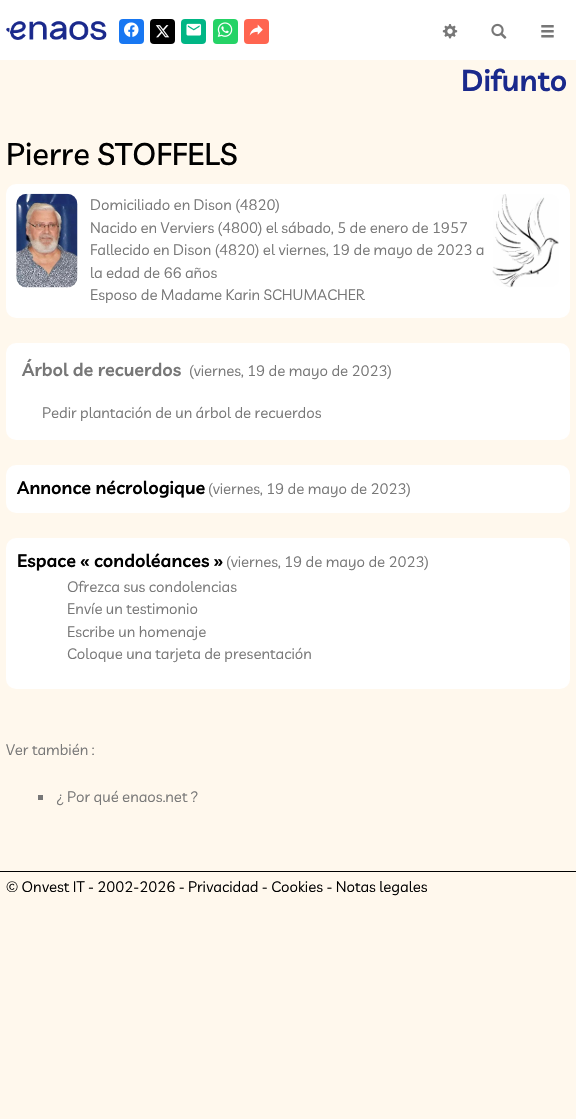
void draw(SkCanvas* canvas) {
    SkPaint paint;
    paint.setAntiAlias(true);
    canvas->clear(0xFFFFF8ED);
    paint.setColor(0xFFFFFFFF);
    canvas->drawRect(SkRect::MakeXYWH(0, 0, 576, 60), paint);
    canvas->drawImageRect(SkImages::DeferredFromEncodedData(SkData::MakeFromFileName("img1.png")), SkRect::MakeXYWH(6, 21, 101, 19), SkSamplingOptions());
    canvas->drawImageRect(SkImages::DeferredFromEncodedData(SkData::MakeFromFileName("img2.png")), SkRect::MakeXYWH(442, 24, 16, 15), SkSamplingOptions());
    canvas->drawImageRect(SkImages::DeferredFromEncodedData(SkData::MakeFromFileName("img3.png")), SkRect::MakeXYWH(491, 23, 16, 16), SkSamplingOptions());
    canvas->drawImageRect(SkImages::DeferredFromEncodedData(SkData::MakeFromFileName("img4.png")), SkRect::MakeXYWH(541, 25, 13, 13), SkSamplingOptions());
    paint.setColor(0xFF1877F2);
    canvas->drawRoundRect(SkRect::MakeXYWH(119, 19, 25, 25), 4, 4, paint);
    canvas->drawImageRect(SkImages::DeferredFromEncodedData(SkData::MakeFromFileName("img5.png")), SkRect::MakeXYWH(124, 22, 15, 15), SkSamplingOptions());
    paint.setColor(0xFF000000);
    canvas->drawRoundRect(SkRect::MakeXYWH(150, 19, 25, 25), 4, 4, paint);
    canvas->drawImageRect(SkImages::DeferredFromEncodedData(SkData::MakeFromFileName("img6.png")), SkRect::MakeXYWH(155, 25, 15, 13), SkSamplingOptions());
    paint.setColor(0xFF00B685);
    canvas->drawRoundRect(SkRect::MakeXYWH(181, 19, 25, 25), 4, 4, paint);
    canvas->drawImageRect(SkImages::DeferredFromEncodedData(SkData::MakeFromFileName("img7.png")), SkRect::MakeXYWH(186, 23, 16, 13), SkSamplingOptions());
    paint.setColor(0xFF25D366);
    canvas->drawRoundRect(SkRect::MakeXYWH(213, 19, 25, 25), 4, 4, paint);
    canvas->drawImageRect(SkImages::DeferredFromEncodedData(SkData::MakeFromFileName("img8.png")), SkRect::MakeXYWH(217, 22, 16, 15), SkSamplingOptions());
    paint.setColor(0xFFFF6550);
    canvas->drawRoundRect(SkRect::MakeXYWH(244, 19, 25, 25), 4, 4, paint);
    canvas->drawImageRect(SkImages::DeferredFromEncodedData(SkData::MakeFromFileName("img9.png")), SkRect::MakeXYWH(249, 24, 14, 12), SkSamplingOptions());
    SkFont font1(fontMgr->matchFamilyStyle("Livvic", SkFontStyle(600, SkFontStyle::kNormal_Width, SkFontStyle::kUpright_Slant)), 30);
    font1.setSubpixel(true);
    paint.setColor(0xFF1A298C);
    canvas->drawString("Difunto", 461, 91, font1, paint);
    SkFont font2(fontMgr->matchFamilyStyle("Livvic", SkFontStyle(500, SkFontStyle::kNormal_Width, SkFontStyle::kUpright_Slant)), 31);
    font2.setSubpixel(true);
    paint.setColor(0xFF000000);
    canvas->drawString("Pierre STOFFELS", 6, 165, font2, paint);
    paint.setColor(0xFFFFFFFF);
    canvas->drawRoundRect(SkRect::MakeXYWH(6, 184, 564, 134), 10, 10, paint);
    canvas->drawImageRect(SkImages::DeferredFromEncodedData(SkData::MakeFromFileName("img10.png")), SkRect::MakeXYWH(16, 193, 62, 95), SkSamplingOptions());
    SkFont font3(fontMgr->matchFamilyStyle("Livvic", SkFontStyle::Normal()), 15);
    font3.setSubpixel(true);
    paint.setColor(0xFF777777);
    canvas->drawString("Domiciliado en Dison (4820)", 90, 210, font3, paint);
    canvas->drawString("Nacido en Verviers (4800) el sábado, 5 de enero de 1957", 90, 233, font3, paint);
    canvas->drawString("Fallecido en Dison (4820) el viernes, 19 de mayo de 2023 a", 90, 255, font3, paint);
    canvas->drawString("la edad de 66 años", 90, 278, font3, paint);
    canvas->drawString("Esposo de Madame Karin SCHUMACHER", 90, 300, font3, paint);
    canvas->drawImageRect(SkImages::DeferredFromEncodedData(SkData::MakeFromFileName("img11.png")), SkRect::MakeXYWH(492, 194, 67, 94), SkSamplingOptions());
    paint.setColor(0xFFFFFFFF);
    canvas->drawRoundRect(SkRect::MakeXYWH(6, 343, 564, 97), 10, 10, paint);
    SkFont font4(fontMgr->matchFamilyStyle("Livvic", SkFontStyle(600, SkFontStyle::kNormal_Width, SkFontStyle::kUpright_Slant)), 18);
    font4.setSubpixel(true);
    paint.setColor(0xFF777777);
    canvas->drawString("Árbol de recuerdos", 22, 376, font4, paint);
    canvas->drawString("(viernes, 19 de mayo de 2023)", 189, 376, font3, paint);
    canvas->drawString("Pedir plantación de un árbol de recuerdos", 42, 418, font3, paint);
    paint.setColor(0xFFFFFFFF);
    canvas->drawRoundRect(SkRect::MakeXYWH(6, 465, 564, 48), 10, 10, paint);
    paint.setColor(0xFF000000);
    canvas->drawString("Annonce nécrologique", 17, 494, font4, paint);
    paint.setColor(0xFF777777);
    canvas->drawString("(viernes, 19 de mayo de 2023)", 208, 494, font3, paint);
    paint.setColor(0xFFFFFFFF);
    canvas->drawRoundRect(SkRect::MakeXYWH(6, 538, 564, 151), 10, 10, paint);
    paint.setColor(0xFF000000);
    canvas->drawString("Espace « condoléances »", 17, 567, font4, paint);
    paint.setColor(0xFF777777);
    canvas->drawString("(viernes, 19 de mayo de 2023)", 226, 567, font3, paint);
    canvas->drawString("Ofrezca sus condolencias", 67, 592, font3, paint);
    canvas->drawString("Envíe un testimonio", 67, 614, font3, paint);
    canvas->drawString("Escribe un homenaje", 67, 637, font3, paint);
    canvas->drawString("Coloque una tarjeta de presentación", 67, 659, font3, paint);
    canvas->drawString("Ver también :", 6, 755, font3, paint);
    canvas->drawRect(SkRect::MakeXYWH(38, 795, 5, 5), paint);
    canvas->drawString("¿ Por qué enaos.net ?", 56, 802, font3, paint);
    paint.setColor(0xFF000000);
    canvas->drawRect(SkRect::MakeXYWH(0, 871, 576, 1), paint);
    canvas->drawString("© Onvest IT - 2002-2026 - Privacidad - Cookies - Notas legales", 6, 892, font3, paint);
}
